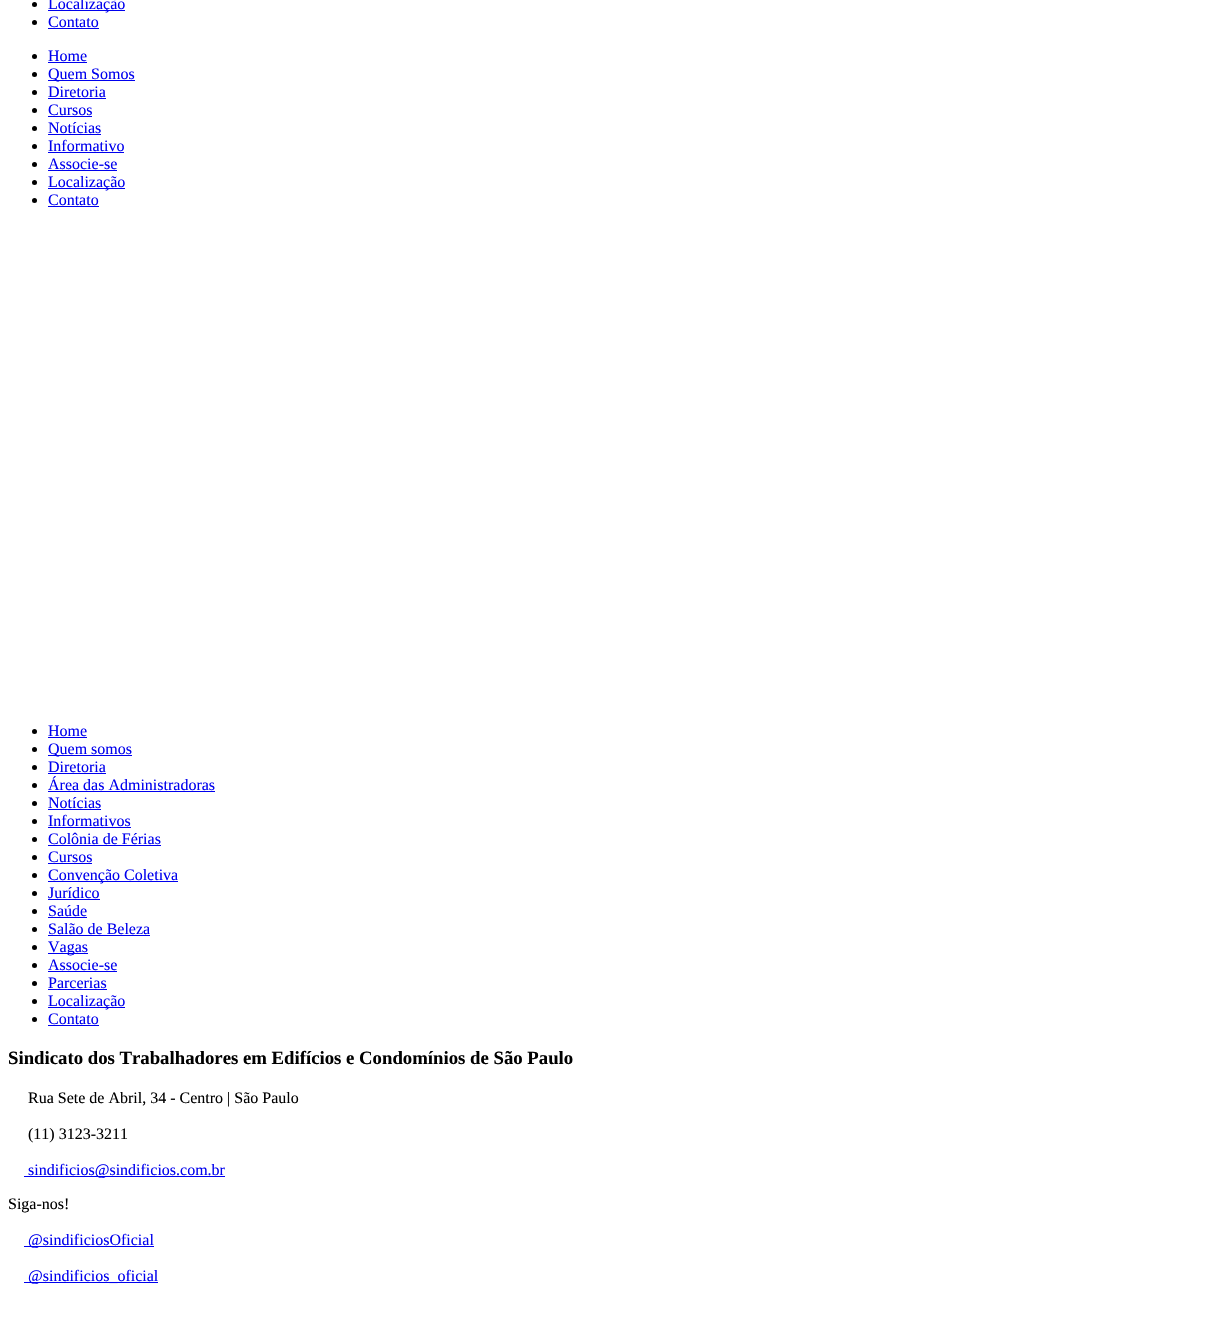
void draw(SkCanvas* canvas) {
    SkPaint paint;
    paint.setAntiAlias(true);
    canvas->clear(0xFFFFFFFF);
    paint.setColor(0xFF000000);
    canvas->drawCircle(34.5f, 4.5f, 2.5f, paint);
    paint.setColor(0xFF0000EE);
    canvas->drawRect(SkRect::MakeXYWH(48, 10, 77, 1), paint);
    SkFont font1(fontMgr->matchFamilyStyle("Liberation Serif", SkFontStyle::Normal()), 16);
    font1.setSubpixel(true);
    canvas->drawString("Localização", 48, 9, font1, paint);
    paint.setColor(0xFF000000);
    canvas->drawCircle(34.5f, 22.5f, 2.5f, paint);
    paint.setColor(0xFF0000EE);
    canvas->drawString("Contato", 48, 27, font1, paint);
    canvas->drawRect(SkRect::MakeXYWH(48, 28, 51, 1), paint);
    paint.setColor(0xFF000000);
    canvas->drawCircle(34.5f, 56.5f, 2.5f, paint);
    paint.setColor(0xFF0000EE);
    canvas->drawString("Home", 48, 61, font1, paint);
    canvas->drawRect(SkRect::MakeXYWH(48, 62, 39, 1), paint);
    paint.setColor(0xFF000000);
    canvas->drawCircle(34.5f, 74.5f, 2.5f, paint);
    paint.setColor(0xFF0000EE);
    canvas->drawRect(SkRect::MakeXYWH(48, 80, 87, 1), paint);
    canvas->drawString("Quem Somos", 48, 79, font1, paint);
    paint.setColor(0xFF000000);
    canvas->drawCircle(34.5f, 92.5f, 2.5f, paint);
    paint.setColor(0xFF0000EE);
    canvas->drawString("Diretoria", 48, 97, font1, paint);
    canvas->drawRect(SkRect::MakeXYWH(48, 98, 58, 1), paint);
    paint.setColor(0xFF000000);
    canvas->drawCircle(34.5f, 110.5f, 2.5f, paint);
    paint.setColor(0xFF0000EE);
    canvas->drawString("Cursos", 48, 115, font1, paint);
    canvas->drawRect(SkRect::MakeXYWH(48, 116, 44, 1), paint);
    paint.setColor(0xFF000000);
    canvas->drawCircle(34.5f, 128.5f, 2.5f, paint);
    paint.setColor(0xFF0000EE);
    canvas->drawString("Notícias", 48, 133, font1, paint);
    canvas->drawRect(SkRect::MakeXYWH(48, 134, 53, 1), paint);
    paint.setColor(0xFF000000);
    canvas->drawCircle(34.5f, 146.5f, 2.5f, paint);
    paint.setColor(0xFF0000EE);
    canvas->drawString("Informativo", 48, 151, font1, paint);
    canvas->drawRect(SkRect::MakeXYWH(48, 152, 76, 1), paint);
    paint.setColor(0xFF000000);
    canvas->drawCircle(34.5f, 164.5f, 2.5f, paint);
    paint.setColor(0xFF0000EE);
    canvas->drawString("Associe-se", 48, 169, font1, paint);
    canvas->drawRect(SkRect::MakeXYWH(48, 170, 69, 1), paint);
    paint.setColor(0xFF000000);
    canvas->drawCircle(34.5f, 182.5f, 2.5f, paint);
    paint.setColor(0xFF0000EE);
    canvas->drawRect(SkRect::MakeXYWH(48, 188, 77, 1), paint);
    canvas->drawString("Localização", 48, 187, font1, paint);
    paint.setColor(0xFF000000);
    canvas->drawCircle(34.5f, 200.5f, 2.5f, paint);
    paint.setColor(0xFF0000EE);
    canvas->drawString("Contato", 48, 205, font1, paint);
    canvas->drawRect(SkRect::MakeXYWH(48, 206, 51, 1), paint);
    paint.setColor(0xFF000000);
    canvas->drawCircle(34.5f, 731.5f, 2.5f, paint);
    paint.setColor(0xFF0000EE);
    canvas->drawString("Home", 48, 736, font1, paint);
    canvas->drawRect(SkRect::MakeXYWH(48, 737, 39, 1), paint);
    paint.setColor(0xFF000000);
    canvas->drawCircle(34.5f, 749.5f, 2.5f, paint);
    paint.setColor(0xFF0000EE);
    canvas->drawRect(SkRect::MakeXYWH(48, 755, 84, 1), paint);
    canvas->drawString("Quem somos", 48, 754, font1, paint);
    paint.setColor(0xFF000000);
    canvas->drawCircle(34.5f, 767.5f, 2.5f, paint);
    paint.setColor(0xFF0000EE);
    canvas->drawString("Diretoria", 48, 772, font1, paint);
    canvas->drawRect(SkRect::MakeXYWH(48, 773, 58, 1), paint);
    paint.setColor(0xFF000000);
    canvas->drawCircle(34.5f, 785.5f, 2.5f, paint);
    paint.setColor(0xFF0000EE);
    canvas->drawString("Área das Administradoras", 48, 790, font1, paint);
    canvas->drawRect(SkRect::MakeXYWH(48, 791, 167, 1), paint);
    paint.setColor(0xFF000000);
    canvas->drawCircle(34.5f, 803.5f, 2.5f, paint);
    paint.setColor(0xFF0000EE);
    canvas->drawString("Notícias", 48, 808, font1, paint);
    canvas->drawRect(SkRect::MakeXYWH(48, 809, 53, 1), paint);
    paint.setColor(0xFF000000);
    canvas->drawCircle(34.5f, 821.5f, 2.5f, paint);
    paint.setColor(0xFF0000EE);
    canvas->drawString("Informativos", 48, 826, font1, paint);
    canvas->drawRect(SkRect::MakeXYWH(48, 827, 83, 1), paint);
    paint.setColor(0xFF000000);
    canvas->drawCircle(34.5f, 839.5f, 2.5f, paint);
    paint.setColor(0xFF0000EE);
    canvas->drawString("Colônia de Férias", 48, 844, font1, paint);
    canvas->drawRect(SkRect::MakeXYWH(48, 845, 113, 1), paint);
    paint.setColor(0xFF000000);
    canvas->drawCircle(34.5f, 857.5f, 2.5f, paint);
    paint.setColor(0xFF0000EE);
    canvas->drawString("Cursos", 48, 862, font1, paint);
    canvas->drawRect(SkRect::MakeXYWH(48, 863, 44, 1), paint);
    paint.setColor(0xFF000000);
    canvas->drawCircle(34.5f, 875.5f, 2.5f, paint);
    paint.setColor(0xFF0000EE);
    canvas->drawRect(SkRect::MakeXYWH(48, 881, 130, 1), paint);
    canvas->drawString("Convenção Coletiva", 48, 880, font1, paint);
    paint.setColor(0xFF000000);
    canvas->drawCircle(34.5f, 893.5f, 2.5f, paint);
    paint.setColor(0xFF0000EE);
    canvas->drawString("Jurídico", 48, 898, font1, paint);
    canvas->drawRect(SkRect::MakeXYWH(48, 899, 52, 1), paint);
    paint.setColor(0xFF000000);
    canvas->drawCircle(34.5f, 911.5f, 2.5f, paint);
    paint.setColor(0xFF0000EE);
    canvas->drawString("Saúde", 48, 916, font1, paint);
    canvas->drawRect(SkRect::MakeXYWH(48, 917, 39, 1), paint);
    paint.setColor(0xFF000000);
    canvas->drawCircle(34.5f, 929.5f, 2.5f, paint);
    paint.setColor(0xFF0000EE);
    canvas->drawString("Salão de Beleza", 48, 934, font1, paint);
    canvas->drawRect(SkRect::MakeXYWH(48, 935, 102, 1), paint);
    paint.setColor(0xFF000000);
    canvas->drawCircle(34.5f, 947.5f, 2.5f, paint);
    paint.setColor(0xFF0000EE);
    canvas->drawRect(SkRect::MakeXYWH(48, 953, 40, 1), paint);
    canvas->drawString("Vagas", 48, 952, font1, paint);
    paint.setColor(0xFF000000);
    canvas->drawCircle(34.5f, 965.5f, 2.5f, paint);
    paint.setColor(0xFF0000EE);
    canvas->drawString("Associe-se", 48, 970, font1, paint);
    canvas->drawRect(SkRect::MakeXYWH(48, 971, 69, 1), paint);
    paint.setColor(0xFF000000);
    canvas->drawCircle(34.5f, 983.5f, 2.5f, paint);
    paint.setColor(0xFF0000EE);
    canvas->drawString("Parcerias", 48, 988, font1, paint);
    canvas->drawRect(SkRect::MakeXYWH(48, 989, 59, 1), paint);
    paint.setColor(0xFF000000);
    canvas->drawCircle(34.5f, 1001.5f, 2.5f, paint);
    paint.setColor(0xFF0000EE);
    canvas->drawRect(SkRect::MakeXYWH(48, 1007, 77, 1), paint);
    canvas->drawString("Localização", 48, 1006, font1, paint);
    paint.setColor(0xFF000000);
    canvas->drawCircle(34.5f, 1019.5f, 2.5f, paint);
    paint.setColor(0xFF0000EE);
    canvas->drawString("Contato", 48, 1024, font1, paint);
    canvas->drawRect(SkRect::MakeXYWH(48, 1025, 51, 1), paint);
    SkFont font2(fontMgr->matchFamilyStyle("Liberation Serif", SkFontStyle::Bold()), 18.75f);
    font2.setSubpixel(true);
    paint.setColor(0xFF000000);
    canvas->drawString("Sindicato dos Trabalhadores em Edifícios e Condomínios de São Paulo", 8, 1064, font2, paint);
    canvas->drawString("Rua Sete de Abril, 34 - Centro | São Paulo", 28, 1103, font1, paint);
    canvas->drawString("(11) 3123-3211", 28, 1139, font1, paint);
    paint.setColor(0xFF0000EE);
    canvas->drawRect(SkRect::MakeXYWH(24, 1176, 201, 1), paint);
    canvas->drawString("sindificios@sindificios.com.br", 28, 1175, font1, paint);
    paint.setColor(0xFF000000);
    canvas->drawString("Siga-nos!", 8, 1209, font1, paint);
    paint.setColor(0xFF0000EE);
    canvas->drawRect(SkRect::MakeXYWH(24, 1246, 130, 1), paint);
    canvas->drawString("@sindificiosOficial", 28, 1245, font1, paint);
    canvas->drawRect(SkRect::MakeXYWH(24, 1282, 134, 1), paint);
    canvas->drawString("@sindificios_oficial", 28, 1281, font1, paint);
}
